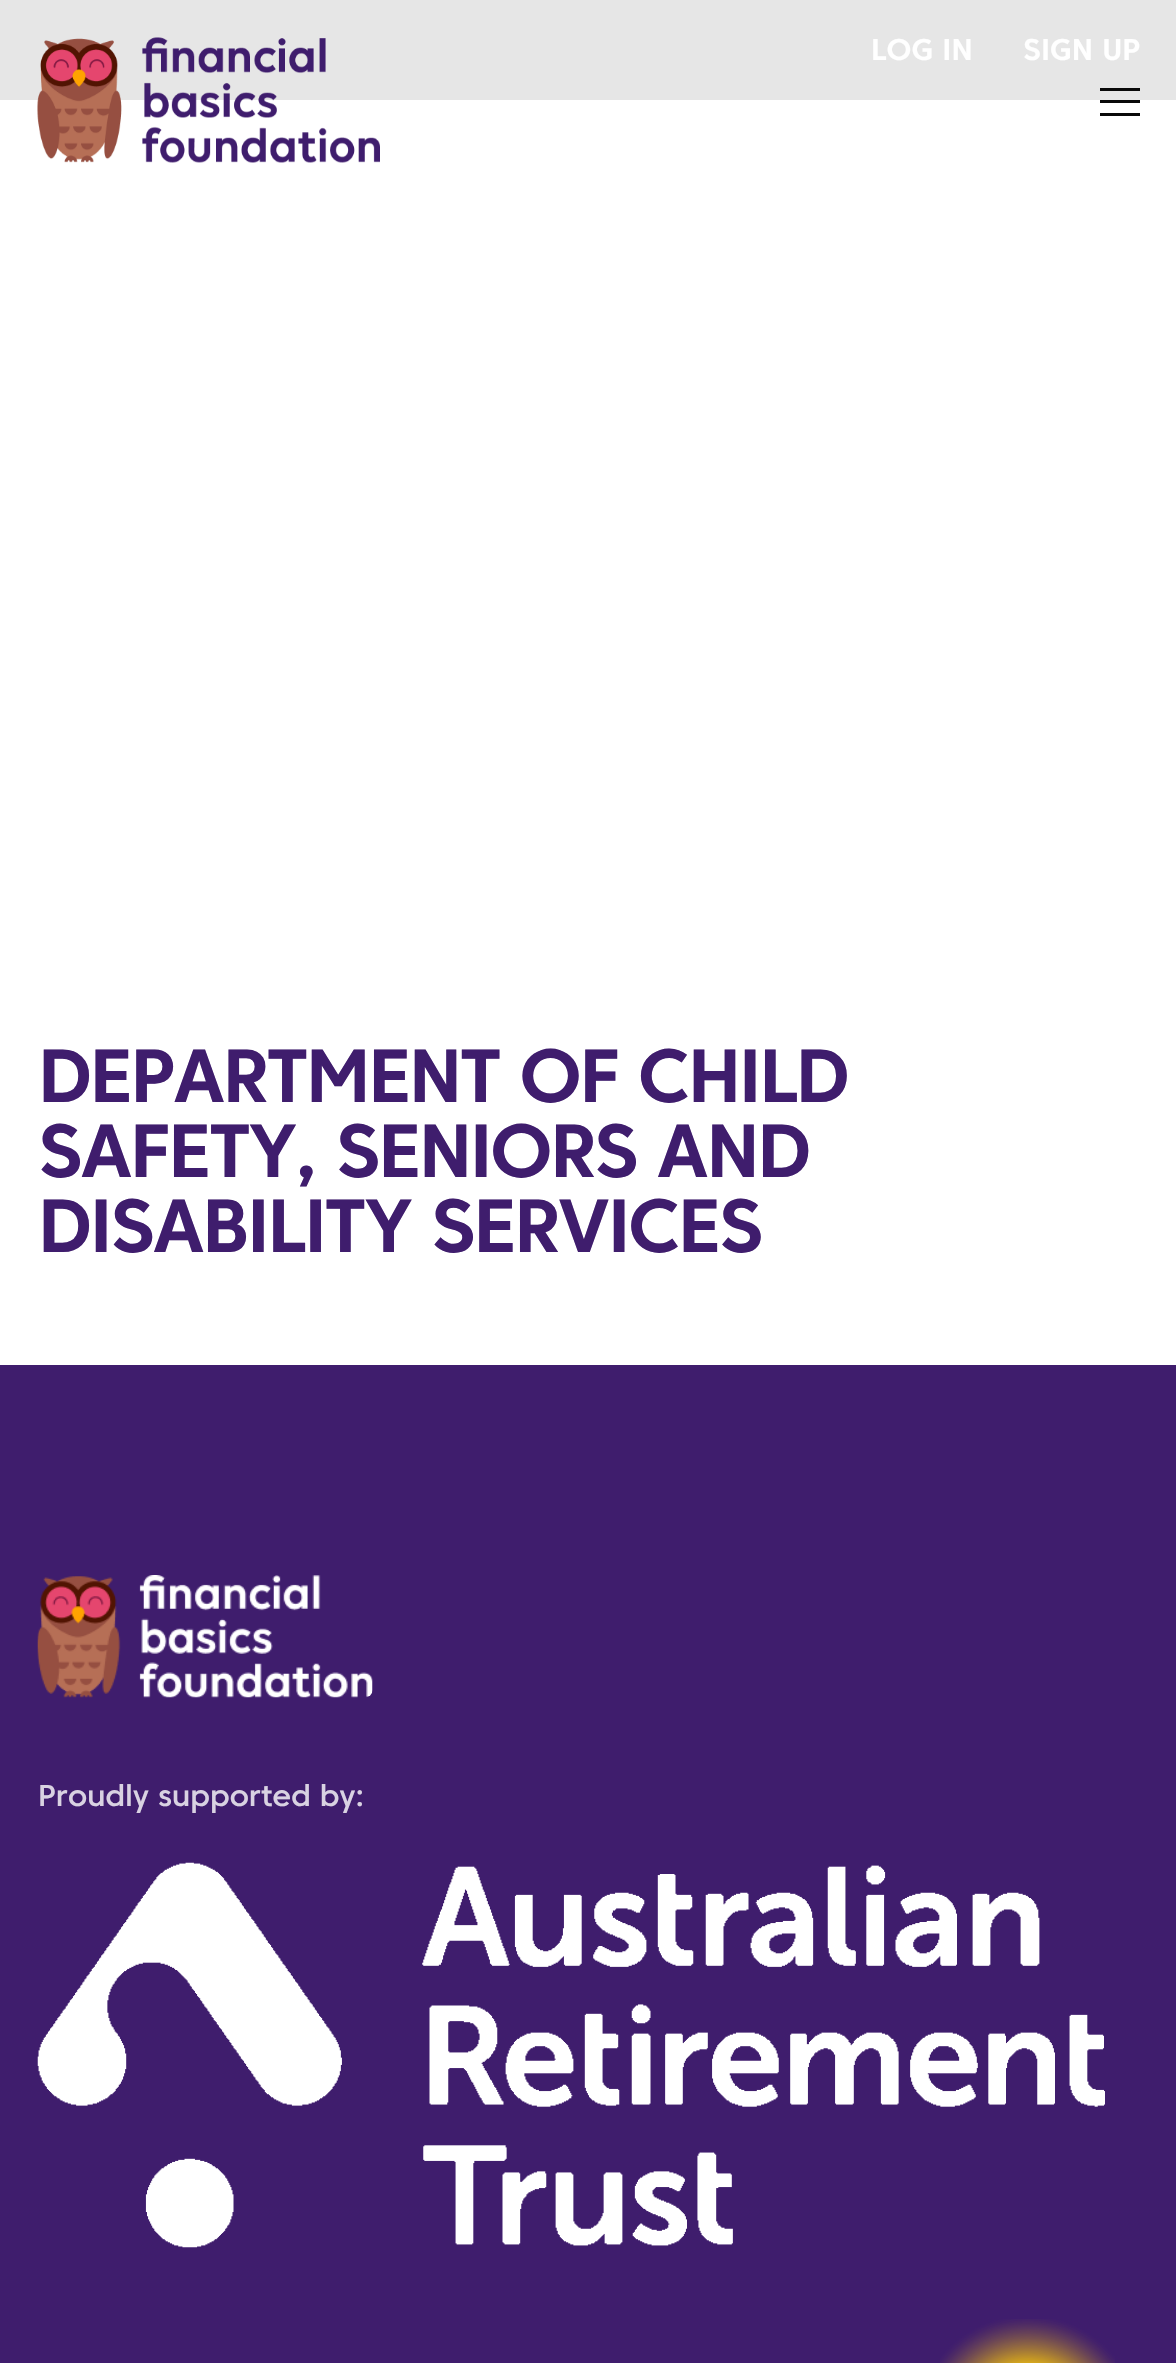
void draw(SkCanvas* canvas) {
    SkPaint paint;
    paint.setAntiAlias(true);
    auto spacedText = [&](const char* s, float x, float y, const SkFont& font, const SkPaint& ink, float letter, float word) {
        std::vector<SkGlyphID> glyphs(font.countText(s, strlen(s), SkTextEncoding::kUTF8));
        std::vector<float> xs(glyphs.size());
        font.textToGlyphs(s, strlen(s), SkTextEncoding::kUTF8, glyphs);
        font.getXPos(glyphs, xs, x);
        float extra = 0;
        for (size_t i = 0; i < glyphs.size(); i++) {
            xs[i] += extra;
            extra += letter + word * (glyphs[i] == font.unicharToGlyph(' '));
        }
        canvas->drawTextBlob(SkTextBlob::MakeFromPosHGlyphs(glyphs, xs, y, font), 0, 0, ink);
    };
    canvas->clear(0xFFFFFFFF);
    paint.setColor(0xFFE6E6E6);
    canvas->drawRect(SkRect::MakeXYWH(0, 0, 1176, 100), paint);
    canvas->drawImageRect(SkImages::DeferredFromEncodedData(SkData::MakeFromFileName("img1.png")), SkRect::MakeXYWH(37, 37, 343, 126), SkSamplingOptions());
    paint.setColor(0xFF090909);
    canvas->drawRect(SkRect::MakeXYWH(1100, 88, 40, 3), paint);
    canvas->drawRect(SkRect::MakeXYWH(1100, 100, 40, 3), paint);
    canvas->drawRect(SkRect::MakeXYWH(1100, 113, 40, 3), paint);
    SkFont font1(fontMgr->matchFamilyStyle("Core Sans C", SkFontStyle::Bold()), 30);
    font1.setSubpixel(true);
    paint.setColor(0xFFFFFFFF);
    canvas->drawString("LOG IN", 871, 60, font1, paint);
    canvas->drawString("SIGN UP", 1023, 60, font1, paint);
    SkFont font2(fontMgr->matchFamilyStyle("Core Sans C", SkFontStyle::Bold()), 75);
    font2.setSubpixel(true);
    paint.setColor(0xFF3F1D6D);
    spacedText("DEPARTMENT OF CHILD", 38, 1102, font2, paint, -2.25f, 0);
    spacedText("SAFETY, SENIORS AND", 38, 1177, font2, paint, -2.25f, 0);
    spacedText("DISABILITY SERVICES", 38, 1252, font2, paint, -2.25f, 0);
    canvas->drawRect(SkRect::MakeXYWH(0, 1365, 1176, 998), paint);
    canvas->drawImageRect(SkImages::DeferredFromEncodedData(SkData::MakeFromFileName("img2.png")), SkRect::MakeXYWH(37, 1575, 336, 123), SkSamplingOptions());
    SkFont font3(fontMgr->matchFamilyStyle("Core Sans C", SkFontStyle(500, SkFontStyle::kNormal_Width, SkFontStyle::kUpright_Slant)), 30);
    font3.setSubpixel(true);
    paint.setColor(0xFFD9D2E2);
    canvas->drawString("Proudly supported by:", 38, 1806, font3, paint);
    canvas->drawImageRect(SkImages::DeferredFromEncodedData(SkData::MakeFromFileName("img3.png")), SkRect::MakeXYWH(37, 1862, 1068, 386), SkSamplingOptions());
    canvas->drawImageRect(SkImages::DeferredFromEncodedData(SkData::MakeFromFileName("img4.png")), SkRect::MakeXYWH(940, 2319, 175, 44), SkSamplingOptions());
}
